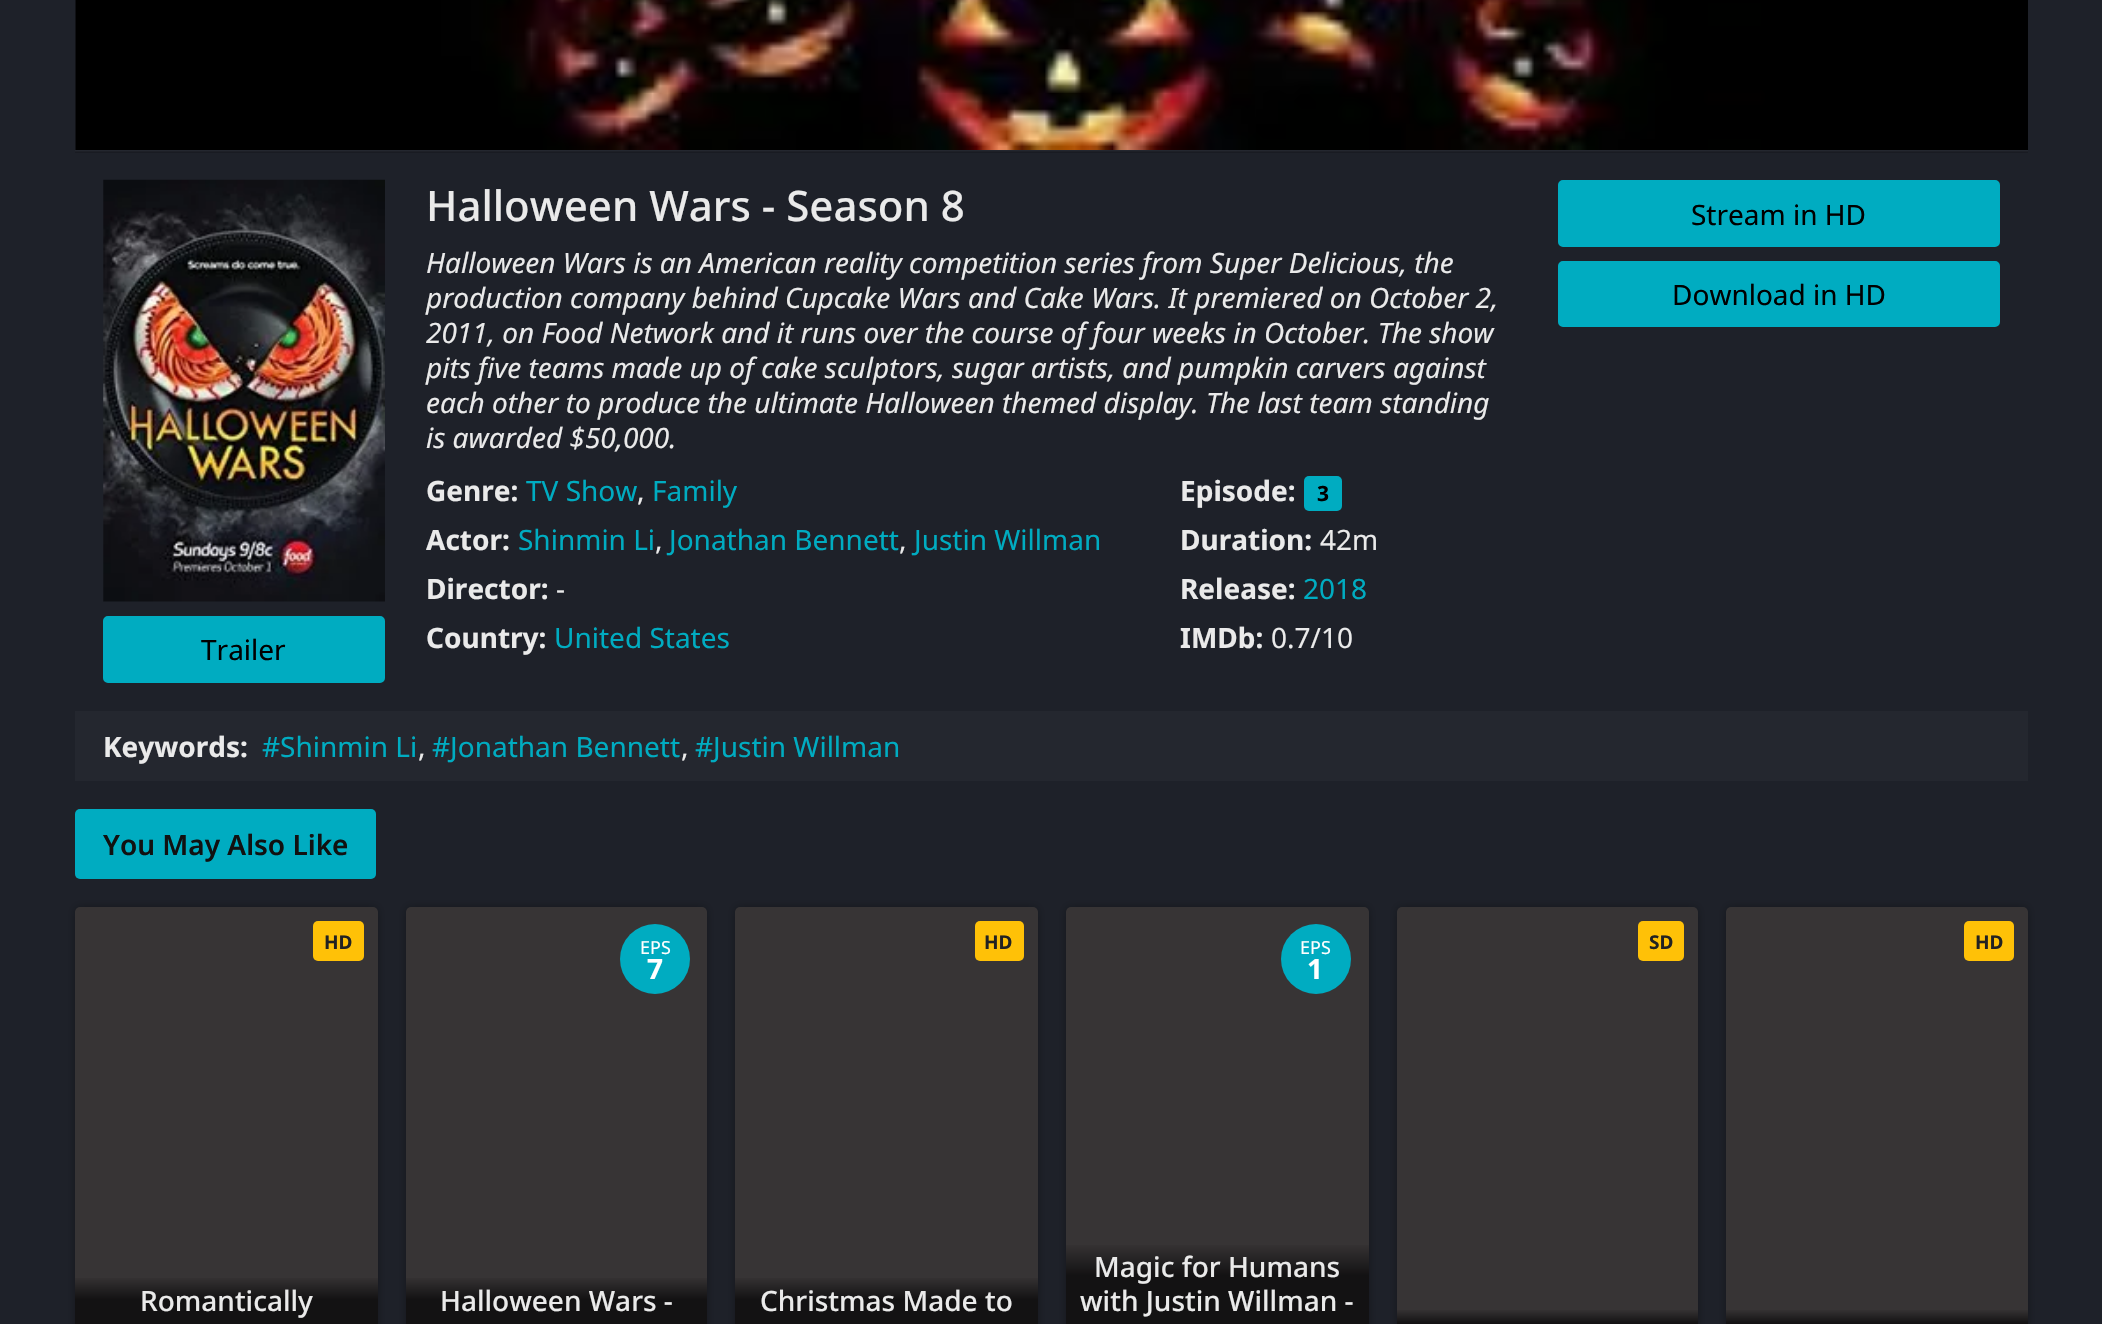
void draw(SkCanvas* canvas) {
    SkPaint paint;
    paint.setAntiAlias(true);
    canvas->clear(0xFF1E2129);
    paint.setColor(0xFF24272F);
    canvas->drawRect(SkRect::MakeXYWH(75, 0, 1953, 152), paint);
    paint.setColor(0x2E000000);
    canvas->drawRect(SkRect::MakeXYWH(75, 151, 1953, 2), paint);
    canvas->drawImageRect(SkImages::DeferredFromEncodedData(SkData::MakeFromFileName("img1.png")), SkRect::MakeXYWH(75, 0, 1953, 150), SkSamplingOptions());
    SkFont font1(fontMgr->matchFamilyStyle("Noto Sans", SkFontStyle(500, SkFontStyle::kNormal_Width, SkFontStyle::kUpright_Slant)), 42);
    font1.setSubpixel(true);
    paint.setColor(0xFFEAEAEA);
    canvas->drawString("Halloween Wars - Season 8", 426, 221, font1, paint);
    SkFont font2(fontMgr->matchFamilyStyle("Noto Sans", SkFontStyle::Italic()), 28);
    font2.setSubpixel(true);
    canvas->drawString("Halloween Wars is an American reality competition series from Super Delicious, the", 426, 273, font2, paint);
    canvas->drawString("production company behind Cupcake Wars and Cake Wars. It premiered on October 2,", 426, 308, font2, paint);
    canvas->drawString("2011, on Food Network and it runs over the course of four weeks in October. The show", 426, 343, font2, paint);
    canvas->drawString("pits five teams made up of cake sculptors, sugar artists, and pumpkin carvers against", 426, 378, font2, paint);
    canvas->drawString("each other to produce the ultimate Halloween themed display. The last team standing", 426, 413, font2, paint);
    canvas->drawString("is awarded $50,000.", 426, 448, font2, paint);
    SkFont font3(fontMgr->matchFamilyStyle("Noto Sans", SkFontStyle::Bold()), 28);
    font3.setSubpixel(true);
    canvas->drawString("Genre:", 426, 501, font3, paint);
    SkFont font4(fontMgr->matchFamilyStyle("Noto Sans", SkFontStyle::Normal()), 28);
    font4.setSubpixel(true);
    paint.setColor(0xFF00ACC1);
    canvas->drawString("TV Show", 526, 501, font4, paint);
    paint.setColor(0xFFEAEAEA);
    canvas->drawString(",", 637, 501, font4, paint);
    paint.setColor(0xFF00ACC1);
    canvas->drawString("Family", 652, 501, font4, paint);
    paint.setColor(0xFFEAEAEA);
    canvas->drawString("Actor:", 426, 550, font3, paint);
    paint.setColor(0xFF00ACC1);
    canvas->drawString("Shinmin Li", 518, 550, font4, paint);
    paint.setColor(0xFFEAEAEA);
    canvas->drawString(",", 655, 550, font4, paint);
    paint.setColor(0xFF00ACC1);
    canvas->drawString("Jonathan Bennett", 669, 550, font4, paint);
    paint.setColor(0xFFEAEAEA);
    canvas->drawString(",", 899, 550, font4, paint);
    paint.setColor(0xFF00ACC1);
    canvas->drawString("Justin Willman", 914, 550, font4, paint);
    paint.setColor(0xFFEAEAEA);
    canvas->drawString("Director:", 426, 599, font3, paint);
    canvas->drawString("-", 556, 599, font4, paint);
    canvas->drawString("Country:", 426, 648, font3, paint);
    paint.setColor(0xFF00ACC1);
    canvas->drawString("United States", 554, 648, font4, paint);
    paint.setColor(0xFFEAEAEA);
    canvas->drawString("Episode:", 1180, 501, font3, paint);
    paint.setColor(0xFF00ACC1);
    canvas->drawRoundRect(SkRect::MakeXYWH(1304, 476, 38, 35), 5, 5, paint);
    SkFont font5(fontMgr->matchFamilyStyle("Noto Sans", SkFontStyle::Bold()), 21);
    font5.setSubpixel(true);
    paint.setColor(0xFF000000);
    canvas->drawString("3", 1317, 501, font5, paint);
    paint.setColor(0xFFEAEAEA);
    canvas->drawString("Duration:", 1180, 550, font3, paint);
    canvas->drawString("42m", 1320, 550, font4, paint);
    canvas->drawString("Release:", 1180, 599, font3, paint);
    paint.setColor(0xFF00ACC1);
    canvas->drawString("2018", 1303, 599, font4, paint);
    paint.setColor(0xFFEAEAEA);
    canvas->drawString("IMDb:", 1180, 648, font3, paint);
    canvas->drawString("0.7/10", 1271, 648, font4, paint);
    paint.setColor(0xFF00ACC1);
    canvas->drawRoundRect(SkRect::MakeXYWH(1559, 181, 440, 65), 4, 4, paint);
    paint.setStyle(SkPaint::kStroke_Style);
    paint.setStrokeWidth(2);
    canvas->drawRoundRect(SkRect::MakeXYWH(1559, 181, 440, 65), 4, 4, paint);
    paint.setStyle(SkPaint::kFill_Style);
    paint.setColor(0xFF000000);
    canvas->drawString("Stream in HD", 1691, 225, font4, paint);
    paint.setColor(0xFF00ACC1);
    canvas->drawRoundRect(SkRect::MakeXYWH(1559, 262, 440, 64), 4, 4, paint);
    paint.setStyle(SkPaint::kStroke_Style);
    canvas->drawRoundRect(SkRect::MakeXYWH(1559, 262, 440, 64), 4, 4, paint);
    paint.setStyle(SkPaint::kFill_Style);
    paint.setColor(0xFF000000);
    canvas->drawString("Download in HD", 1672, 305, font4, paint);
    canvas->drawImageRect(SkImages::DeferredFromEncodedData(SkData::MakeFromFileName("img2.png")), SkRect::MakeXYWH(103, 179, 282, 423), SkSamplingOptions());
    paint.setColor(0xFF00ACC1);
    canvas->drawRoundRect(SkRect::MakeXYWH(104, 617, 280, 65), 4, 4, paint);
    paint.setStyle(SkPaint::kStroke_Style);
    canvas->drawRoundRect(SkRect::MakeXYWH(104, 617, 280, 65), 4, 4, paint);
    paint.setStyle(SkPaint::kFill_Style);
    paint.setColor(0xFF000000);
    canvas->drawString("Trailer", 201, 660, font4, paint);
    paint.setColor(0x08EAEAEA);
    canvas->drawRect(SkRect::MakeXYWH(75, 711, 1953, 70), paint);
    paint.setColor(0xFFEAEAEA);
    canvas->drawString("Keywords:", 103, 757, font3, paint);
    paint.setColor(0xFF00ACC1);
    canvas->drawString("#Shinmin Li", 262, 757, font4, paint);
    paint.setColor(0xFFEAEAEA);
    canvas->drawString(",", 418, 757, font4, paint);
    paint.setColor(0xFF00ACC1);
    canvas->drawString("#Jonathan Bennett", 432, 757, font4, paint);
    paint.setColor(0xFFEAEAEA);
    canvas->drawString(",", 681, 757, font4, paint);
    paint.setColor(0xFF00ACC1);
    canvas->drawString("#Justin Willman", 695, 757, font4, paint);
    canvas->drawRoundRect(SkRect::MakeXYWH(75, 809, 301, 70), 5, 5, paint);
    SkFont font6(fontMgr->matchFamilyStyle("Noto Sans", SkFontStyle(600, SkFontStyle::kNormal_Width, SkFontStyle::kUpright_Slant)), 28);
    font6.setSubpixel(true);
    paint.setColor(0xFF111111);
    canvas->drawString("You May Also Like", 103, 855, font6, paint);
    paint.setColor(0x4D000000);
    paint.setMaskFilter(SkMaskFilter::MakeBlur(kNormal_SkBlurStyle, 4.5f));
    canvas->drawRoundRect(SkRect::MakeXYWH(75, 907, 303, 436), 5, 5, paint);
    paint.setMaskFilter(nullptr);
    canvas->save();
    canvas->clipPath(SkPathBuilder().moveTo(79, 907).lineTo(374, 907).cubicTo(376, 907, 378, 909, 378, 911).lineTo(378, 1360).lineTo(75, 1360).lineTo(75, 911).cubicTo(75, 909, 77, 907, 79, 907).close().detach(), true);
    paint.setColor(0xFF373435);
    canvas->drawRoundRect(SkRect::MakeXYWH(75, 907, 303, 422), 5, 5, paint);
    canvas->restore();
    paint.setColor(0xFFFFC107);
    canvas->drawRoundRect(SkRect::MakeXYWH(313, 921, 51, 40), 5, 5, paint);
    SkFont font7(fontMgr->matchFamilyStyle("Noto Sans", SkFontStyle::Bold()), 19);
    font7.setSubpixel(true);
    paint.setColor(0xFF222222);
    canvas->drawString("HD", 324, 949, font7, paint);
    {
        const SkColor colors[] = {0xFF373435, 0xFF131213, 0xFF131213};
        const float stops[] = {0, 0.28f, 1};
        const SkPoint ends[] = {{227, 1276}, {227, 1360}};
        paint.setShader(SkGradientShader::MakeLinear(ends, colors, stops, 3, SkTileMode::kClamp));
        paint.setAlpha(255);
    }
    canvas->drawRect(SkRect::MakeXYWH(75, 1278, 303, 46), paint);
    SkFont font8(fontMgr->matchFamilyStyle("Noto Sans", SkFontStyle(500, SkFontStyle::kNormal_Width, SkFontStyle::kUpright_Slant)), 28);
    font8.setSubpixel(true);
    paint.setShader(nullptr);
    paint.setColor(0xFFEAEAEA);
    canvas->drawString("Romantically", 140, 1311, font8, paint);
    paint.setColor(0x4D000000);
    paint.setMaskFilter(SkMaskFilter::MakeBlur(kNormal_SkBlurStyle, 4.5f));
    canvas->drawRoundRect(SkRect::MakeXYWH(406, 907, 301, 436), 5, 5, paint);
    paint.setMaskFilter(nullptr);
    canvas->save();
    canvas->clipPath(SkPathBuilder().moveTo(410, 907).lineTo(703, 907).cubicTo(705, 907, 707, 909, 707, 911).lineTo(707, 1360).lineTo(406, 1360).lineTo(406, 911).cubicTo(406, 909, 408, 907, 410, 907).close().detach(), true);
    paint.setColor(0xFF373435);
    canvas->drawRoundRect(SkRect::MakeXYWH(406, 907, 301, 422), 5, 5, paint);
    canvas->restore();
    paint.setColor(0xFF00ACC1);
    canvas->drawCircle(655, 959, 35, paint);
    SkFont font9(fontMgr->matchFamilyStyle("Noto Sans", SkFontStyle::Normal()), 18);
    font9.setSubpixel(true);
    paint.setColor(0xFFFFFFFF);
    canvas->drawString("EPS", 640, 954, font9, paint);
    canvas->drawString("7", 647, 979, font3, paint);
    {
        const SkColor colors[] = {0xFF373435, 0xFF131213, 0xFF131213};
        const float stops[] = {0, 0.28f, 1};
        const SkPoint ends[] = {{557, 1276}, {557, 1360}};
        paint.setShader(SkGradientShader::MakeLinear(ends, colors, stops, 3, SkTileMode::kClamp));
        paint.setAlpha(255);
    }
    canvas->drawRect(SkRect::MakeXYWH(406, 1278, 301, 46), paint);
    paint.setShader(nullptr);
    paint.setColor(0xFFEAEAEA);
    canvas->drawString("Halloween Wars -", 440, 1311, font8, paint);
    paint.setColor(0x4D000000);
    paint.setMaskFilter(SkMaskFilter::MakeBlur(kNormal_SkBlurStyle, 4.5f));
    canvas->drawRoundRect(SkRect::MakeXYWH(735, 907, 303, 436), 5, 5, paint);
    paint.setMaskFilter(nullptr);
    canvas->save();
    canvas->clipPath(SkPathBuilder().moveTo(739, 907).lineTo(1034, 907).cubicTo(1036, 907, 1038, 909, 1038, 911).lineTo(1038, 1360).lineTo(735, 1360).lineTo(735, 911).cubicTo(735, 909, 737, 907, 739, 907).close().detach(), true);
    paint.setColor(0xFF373435);
    canvas->drawRoundRect(SkRect::MakeXYWH(735, 907, 303, 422), 5, 5, paint);
    canvas->restore();
    paint.setColor(0xFFFFC107);
    canvas->drawRoundRect(SkRect::MakeXYWH(975, 921, 49, 40), 5, 5, paint);
    paint.setColor(0xFF222222);
    canvas->drawString("HD", 984, 949, font7, paint);
    {
        const SkColor colors[] = {0xFF373435, 0xFF131213, 0xFF131213};
        const float stops[] = {0, 0.28f, 1};
        const SkPoint ends[] = {{886, 1276}, {886, 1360}};
        paint.setShader(SkGradientShader::MakeLinear(ends, colors, stops, 3, SkTileMode::kClamp));
        paint.setAlpha(255);
    }
    canvas->drawRect(SkRect::MakeXYWH(735, 1278, 303, 46), paint);
    paint.setShader(nullptr);
    paint.setColor(0xFFEAEAEA);
    canvas->drawString("Christmas Made to", 760, 1311, font8, paint);
    paint.setColor(0x4D000000);
    paint.setMaskFilter(SkMaskFilter::MakeBlur(kNormal_SkBlurStyle, 4.5f));
    canvas->drawRoundRect(SkRect::MakeXYWH(1066, 907, 303, 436), 5, 5, paint);
    paint.setMaskFilter(nullptr);
    canvas->save();
    canvas->clipPath(SkPathBuilder().moveTo(1070, 907).lineTo(1365, 907).cubicTo(1367, 907, 1369, 909, 1369, 911).lineTo(1369, 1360).lineTo(1066, 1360).lineTo(1066, 911).cubicTo(1066, 909, 1068, 907, 1070, 907).close().detach(), true);
    paint.setColor(0xFF373435);
    canvas->drawRoundRect(SkRect::MakeXYWH(1066, 907, 303, 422), 5, 5, paint);
    canvas->restore();
    paint.setColor(0xFF00ACC1);
    canvas->drawCircle(1316, 959, 35, paint);
    paint.setColor(0xFFFFFFFF);
    canvas->drawString("EPS", 1300, 954, font9, paint);
    canvas->drawString("1", 1307, 979, font3, paint);
    {
        const SkColor colors[] = {0xFF373435, 0xFF131213, 0xFF131213};
        const float stops[] = {0, 0.28f, 1};
        const SkPoint ends[] = {{1217, 1243}, {1217, 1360}};
        paint.setShader(SkGradientShader::MakeLinear(ends, colors, stops, 3, SkTileMode::kClamp));
        paint.setAlpha(255);
    }
    canvas->drawRect(SkRect::MakeXYWH(1066, 1245, 303, 79), paint);
    paint.setShader(nullptr);
    paint.setColor(0xFFEAEAEA);
    canvas->drawString("Magic for Humans", 1094, 1277, font8, paint);
    canvas->drawString("with Justin Willman -", 1080, 1311, font8, paint);
    paint.setColor(0x4D000000);
    paint.setMaskFilter(SkMaskFilter::MakeBlur(kNormal_SkBlurStyle, 4.5f));
    canvas->drawRoundRect(SkRect::MakeXYWH(1397, 907, 301, 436), 5, 5, paint);
    paint.setMaskFilter(nullptr);
    canvas->save();
    canvas->clipPath(SkPathBuilder().moveTo(1401, 907).lineTo(1694, 907).cubicTo(1696, 907, 1698, 909, 1698, 911).lineTo(1698, 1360).lineTo(1397, 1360).lineTo(1397, 911).cubicTo(1397, 909, 1399, 907, 1401, 907).close().detach(), true);
    paint.setColor(0xFF373435);
    canvas->drawRoundRect(SkRect::MakeXYWH(1397, 907, 301, 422), 5, 5, paint);
    canvas->restore();
    paint.setColor(0xFFFFC107);
    canvas->drawRoundRect(SkRect::MakeXYWH(1638, 921, 46, 40), 5, 5, paint);
    paint.setColor(0xFF222222);
    canvas->drawString("SD", 1649, 949, font7, paint);
    {
        const SkColor colors[] = {0xFF373435, 0xFF131213, 0xFF131213};
        const float stops[] = {0, 0.28f, 1};
        const SkPoint ends[] = {{1547, 1309}, {1547, 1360}};
        paint.setShader(SkGradientShader::MakeLinear(ends, colors, stops, 3, SkTileMode::kClamp));
        paint.setAlpha(255);
    }
    canvas->drawRect(SkRect::MakeXYWH(1397, 1310, 301, 14), paint);
    paint.setShader(nullptr);
    paint.setColor(0x4D000000);
    paint.setMaskFilter(SkMaskFilter::MakeBlur(kNormal_SkBlurStyle, 4.5f));
    canvas->drawRoundRect(SkRect::MakeXYWH(1726, 907, 302, 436), 5, 5, paint);
    paint.setMaskFilter(nullptr);
    canvas->save();
    canvas->clipPath(SkPathBuilder().moveTo(1730, 907).lineTo(2024, 907).cubicTo(2026, 907, 2028, 909, 2028, 911).lineTo(2028, 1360).lineTo(1726, 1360).lineTo(1726, 911).cubicTo(1726, 909, 1728, 907, 1730, 907).close().detach(), true);
    paint.setColor(0xFF373435);
    canvas->drawRoundRect(SkRect::MakeXYWH(1726, 907, 302, 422), 5, 5, paint);
    canvas->restore();
    paint.setColor(0xFFFFC107);
    canvas->drawRoundRect(SkRect::MakeXYWH(1964, 921, 50, 40), 5, 5, paint);
    paint.setColor(0xFF222222);
    canvas->drawString("HD", 1975, 949, font7, paint);
    {
        const SkColor colors[] = {0xFF373435, 0xFF131213, 0xFF131213};
        const float stops[] = {0, 0.28f, 1};
        const SkPoint ends[] = {{1877, 1309}, {1877, 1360}};
        paint.setShader(SkGradientShader::MakeLinear(ends, colors, stops, 3, SkTileMode::kClamp));
        paint.setAlpha(255);
    }
    canvas->drawRect(SkRect::MakeXYWH(1726, 1310, 302, 14), paint);
}
